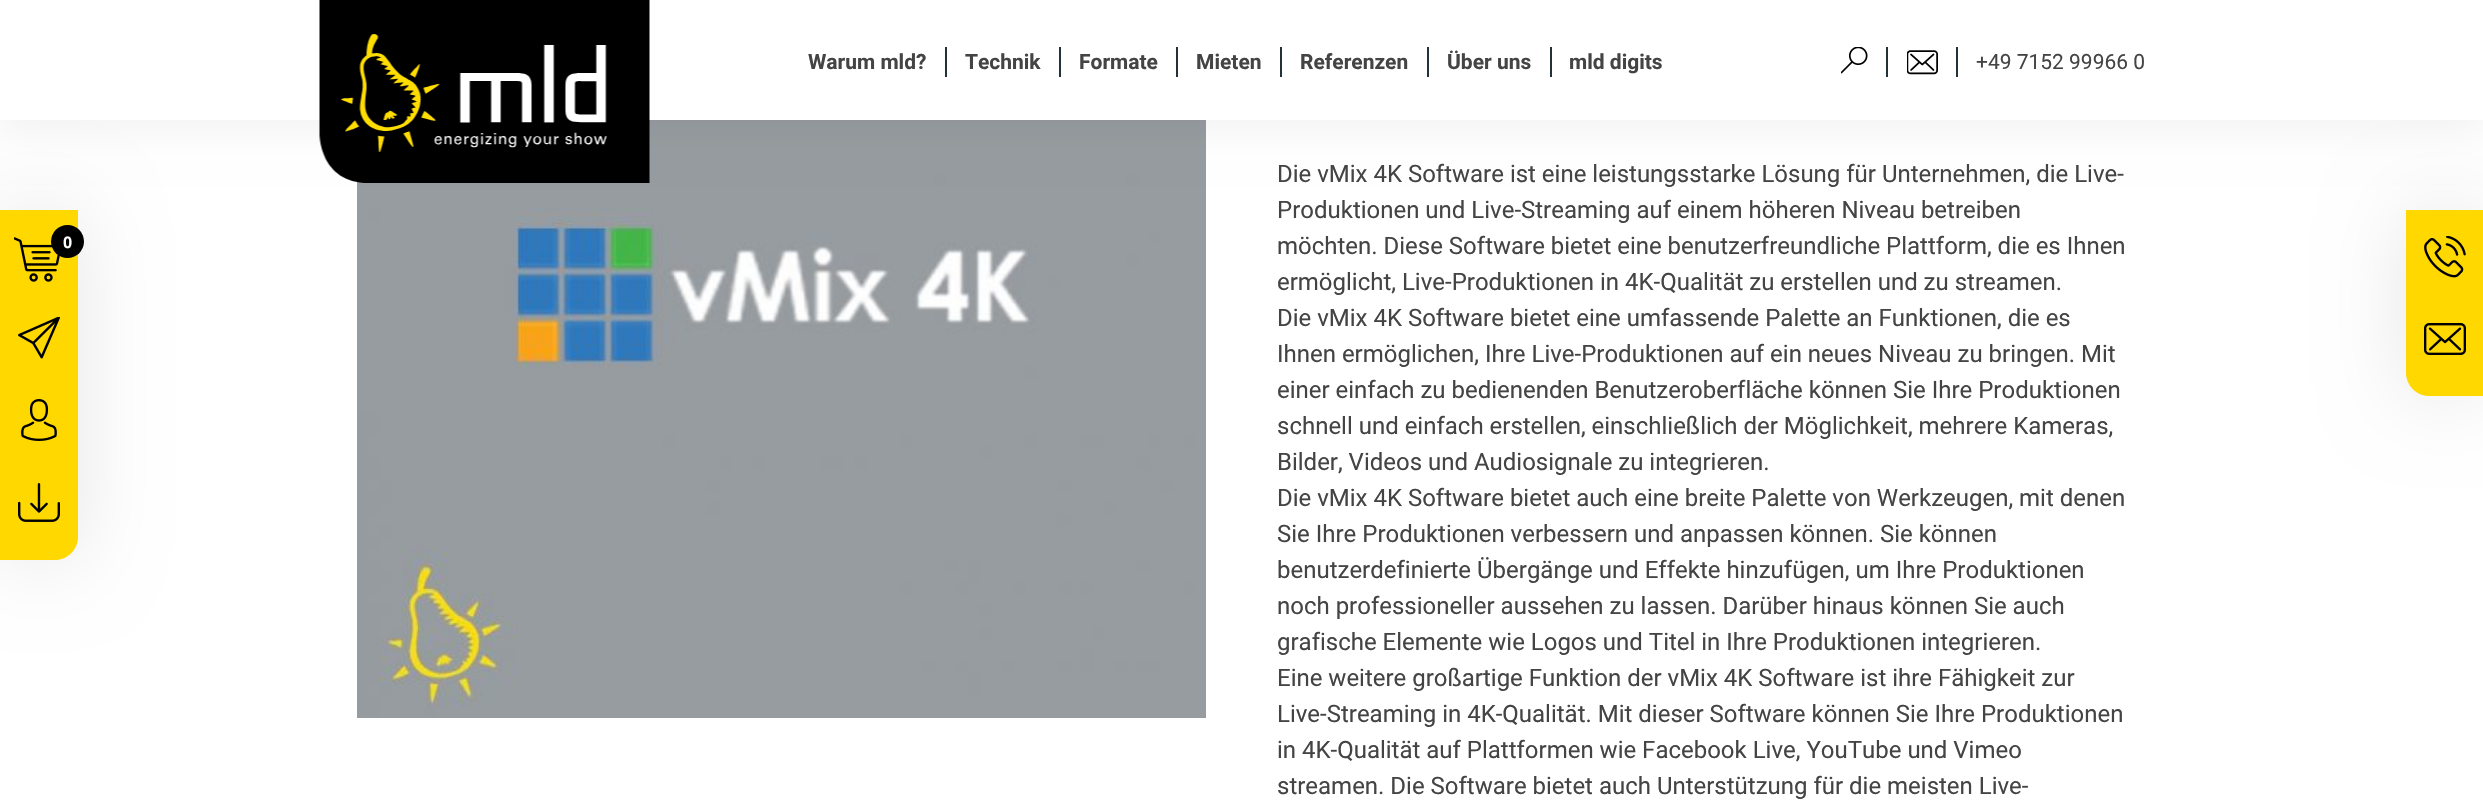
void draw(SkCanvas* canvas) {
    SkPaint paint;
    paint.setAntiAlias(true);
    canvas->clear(0xFFFFFFFF);
    canvas->drawImageRect(SkImages::DeferredFromEncodedData(SkData::MakeFromFileName("img8.png")), SkRect::MakeXYWH(357, 120, 849, 598), SkSamplingOptions());
    paint.setColor(0x0D000000);
    paint.setMaskFilter(SkMaskFilter::MakeBlur(kNormal_SkBlurStyle, 19));
    canvas->drawRect(SkRect::MakeXYWH(0, 9, 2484, 120), paint);
    paint.setMaskFilter(nullptr);
    paint.setColor(0x1A000000);
    paint.setMaskFilter(SkMaskFilter::MakeBlur(kNormal_SkBlurStyle, 40.5f));
    canvas->drawRoundRect(SkRect::MakeXYWH(0, 210, 78, 350), 23, 23, paint);
    paint.setMaskFilter(nullptr);
    paint.setMaskFilter(SkMaskFilter::MakeBlur(kNormal_SkBlurStyle, 40.5f));
    canvas->drawRoundRect(SkRect::MakeXYWH(2406, 210, 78, 186), 23, 23, paint);
    paint.setMaskFilter(nullptr);
    paint.setColor(0xFFFFFFFF);
    canvas->drawRect(SkRect::MakeXYWH(0, 0, 2483, 120), paint);
    canvas->drawImageRect(SkImages::DeferredFromEncodedData(SkData::MakeFromFileName("img1.png")), SkRect::MakeXYWH(319, 0, 331, 183), SkSamplingOptions());
    SkFont font1(fontMgr->matchFamilyStyle("Roboto", SkFontStyle::Bold()), 21);
    font1.setSubpixel(true);
    paint.setColor(0xFF444444);
    canvas->drawString("Warum mld?", 808, 69, font1, paint);
    paint.setColor(0xFF233239);
    canvas->drawRect(SkRect::MakeXYWH(945, 47, 2, 30), paint);
    paint.setColor(0xFF444444);
    canvas->drawString("Technik", 965, 69, font1, paint);
    paint.setColor(0xFF233239);
    canvas->drawRect(SkRect::MakeXYWH(1059, 47, 2, 30), paint);
    paint.setColor(0xFF444444);
    canvas->drawString("Formate", 1079, 69, font1, paint);
    paint.setColor(0xFF233239);
    canvas->drawRect(SkRect::MakeXYWH(1176, 47, 2, 30), paint);
    paint.setColor(0xFF444444);
    canvas->drawString("Mieten", 1196, 69, font1, paint);
    paint.setColor(0xFF233239);
    canvas->drawRect(SkRect::MakeXYWH(1280, 47, 2, 30), paint);
    paint.setColor(0xFF444444);
    canvas->drawString("Referenzen", 1300, 69, font1, paint);
    paint.setColor(0xFF233239);
    canvas->drawRect(SkRect::MakeXYWH(1427, 47, 2, 30), paint);
    paint.setColor(0xFF444444);
    canvas->drawString("Über uns", 1447, 69, font1, paint);
    paint.setColor(0xFF233239);
    canvas->drawRect(SkRect::MakeXYWH(1550, 47, 2, 30), paint);
    paint.setColor(0xFF444444);
    canvas->drawString("mld digits", 1569, 69, font1, paint);
    canvas->drawImageRect(SkImages::DeferredFromEncodedData(SkData::MakeFromFileName("img2.png")), SkRect::MakeXYWH(1841, 47, 27, 27), SkSamplingOptions());
    paint.setColor(0xFF233239);
    canvas->drawRect(SkRect::MakeXYWH(1886, 47, 2, 30), paint);
    canvas->drawImageRect(SkImages::DeferredFromEncodedData(SkData::MakeFromFileName("img3.png")), SkRect::MakeXYWH(1907, 50, 31, 25), SkSamplingOptions());
    canvas->drawRect(SkRect::MakeXYWH(1956, 47, 2, 30), paint);
    SkFont font2(fontMgr->matchFamilyStyle("Roboto", SkFontStyle::Normal()), 21);
    font2.setSubpixel(true);
    paint.setColor(0xFF444444);
    canvas->drawString("+49 7152 99966 0", 1976, 69, font2, paint);
    paint.setColor(0xFFFFD800);
    canvas->drawPath(SkPathBuilder().moveTo(0, 210).lineTo(78, 210).lineTo(78, 537).cubicTo(78, 549.5f, 67.5f, 560, 55, 560).lineTo(0, 560).close().detach(), paint);
    canvas->drawImageRect(SkImages::DeferredFromEncodedData(SkData::MakeFromFileName("img4.png")), SkRect::MakeXYWH(14, 237, 46, 45), SkSamplingOptions());
    paint.setColor(0xFF000000);
    canvas->drawCircle(67.5f, 241.5f, 16.5f, paint);
    SkFont font3(fontMgr->matchFamilyStyle("Roboto", SkFontStyle::Bold()), 16);
    font3.setSubpixel(true);
    paint.setColor(0xFFFFFFFF);
    canvas->drawString("0", 63, 248, font3, paint);
    canvas->drawImageRect(SkImages::DeferredFromEncodedData(SkData::MakeFromFileName("img5.png")), SkRect::MakeXYWH(18, 317, 42, 42), SkSamplingOptions());
    canvas->drawImageRect(SkImages::DeferredFromEncodedData(SkData::MakeFromFileName("img6.png")), SkRect::MakeXYWH(21, 399, 36, 42), SkSamplingOptions());
    canvas->drawImageRect(SkImages::DeferredFromEncodedData(SkData::MakeFromFileName("img7.png")), SkRect::MakeXYWH(18, 483, 42, 39), SkSamplingOptions());
    SkFont font4(fontMgr->matchFamilyStyle("Roboto", SkFontStyle::Normal()), 24);
    font4.setSubpixel(true);
    paint.setColor(0xFF444444);
    canvas->drawString("Die vMix 4K Software ist eine leistungsstarke Lösung für Unternehmen, die Live-", 1277, 182, font4, paint);
    canvas->drawString("Produktionen und Live-Streaming auf einem höheren Niveau betreiben", 1277, 218, font4, paint);
    canvas->drawString("möchten. Diese Software bietet eine benutzerfreundliche Plattform, die es Ihnen", 1277, 254, font4, paint);
    canvas->drawString("ermöglicht, Live-Produktionen in 4K-Qualität zu erstellen und zu streamen.", 1277, 290, font4, paint);
    canvas->drawString("Die vMix 4K Software bietet eine umfassende Palette an Funktionen, die es", 1277, 326, font4, paint);
    canvas->drawString("Ihnen ermöglichen, Ihre Live-Produktionen auf ein neues Niveau zu bringen. Mit", 1277, 362, font4, paint);
    canvas->drawString("einer einfach zu bedienenden Benutzeroberfläche können Sie Ihre Produktionen", 1277, 398, font4, paint);
    canvas->drawString("schnell und einfach erstellen, einschließlich der Möglichkeit, mehrere Kameras,", 1277, 434, font4, paint);
    canvas->drawString("Bilder, Videos und Audiosignale zu integrieren.", 1277, 470, font4, paint);
    canvas->drawString("Die vMix 4K Software bietet auch eine breite Palette von Werkzeugen, mit denen", 1277, 506, font4, paint);
    canvas->drawString("Sie Ihre Produktionen verbessern und anpassen können. Sie können", 1277, 542, font4, paint);
    canvas->drawString("benutzerdefinierte Übergänge und Effekte hinzufügen, um Ihre Produktionen", 1277, 578, font4, paint);
    canvas->drawString("noch professioneller aussehen zu lassen. Darüber hinaus können Sie auch", 1277, 614, font4, paint);
    canvas->drawString("grafische Elemente wie Logos und Titel in Ihre Produktionen integrieren.", 1277, 650, font4, paint);
    canvas->drawString("Eine weitere großartige Funktion der vMix 4K Software ist ihre Fähigkeit zur", 1277, 686, font4, paint);
    canvas->drawString("Live-Streaming in 4K-Qualität. Mit dieser Software können Sie Ihre Produktionen", 1277, 722, font4, paint);
    canvas->drawString("in 4K-Qualität auf Plattformen wie Facebook Live, YouTube und Vimeo", 1277, 758, font4, paint);
    canvas->drawString("streamen. Die Software bietet auch Unterstützung für die meisten Live-", 1277, 794, font4, paint);
    paint.setColor(0xFFFFD800);
    canvas->drawPath(SkPathBuilder().moveTo(2406, 210).lineTo(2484, 210).lineTo(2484, 396).lineTo(2429, 396).cubicTo(2416.5f, 396, 2406, 385.5f, 2406, 373).close().detach(), paint);
    canvas->drawImageRect(SkImages::DeferredFromEncodedData(SkData::MakeFromFileName("img9.png")), SkRect::MakeXYWH(2424, 236, 42, 42), SkSamplingOptions());
    canvas->drawImageRect(SkImages::DeferredFromEncodedData(SkData::MakeFromFileName("img10.png")), SkRect::MakeXYWH(2424, 323, 42, 32), SkSamplingOptions());
}
